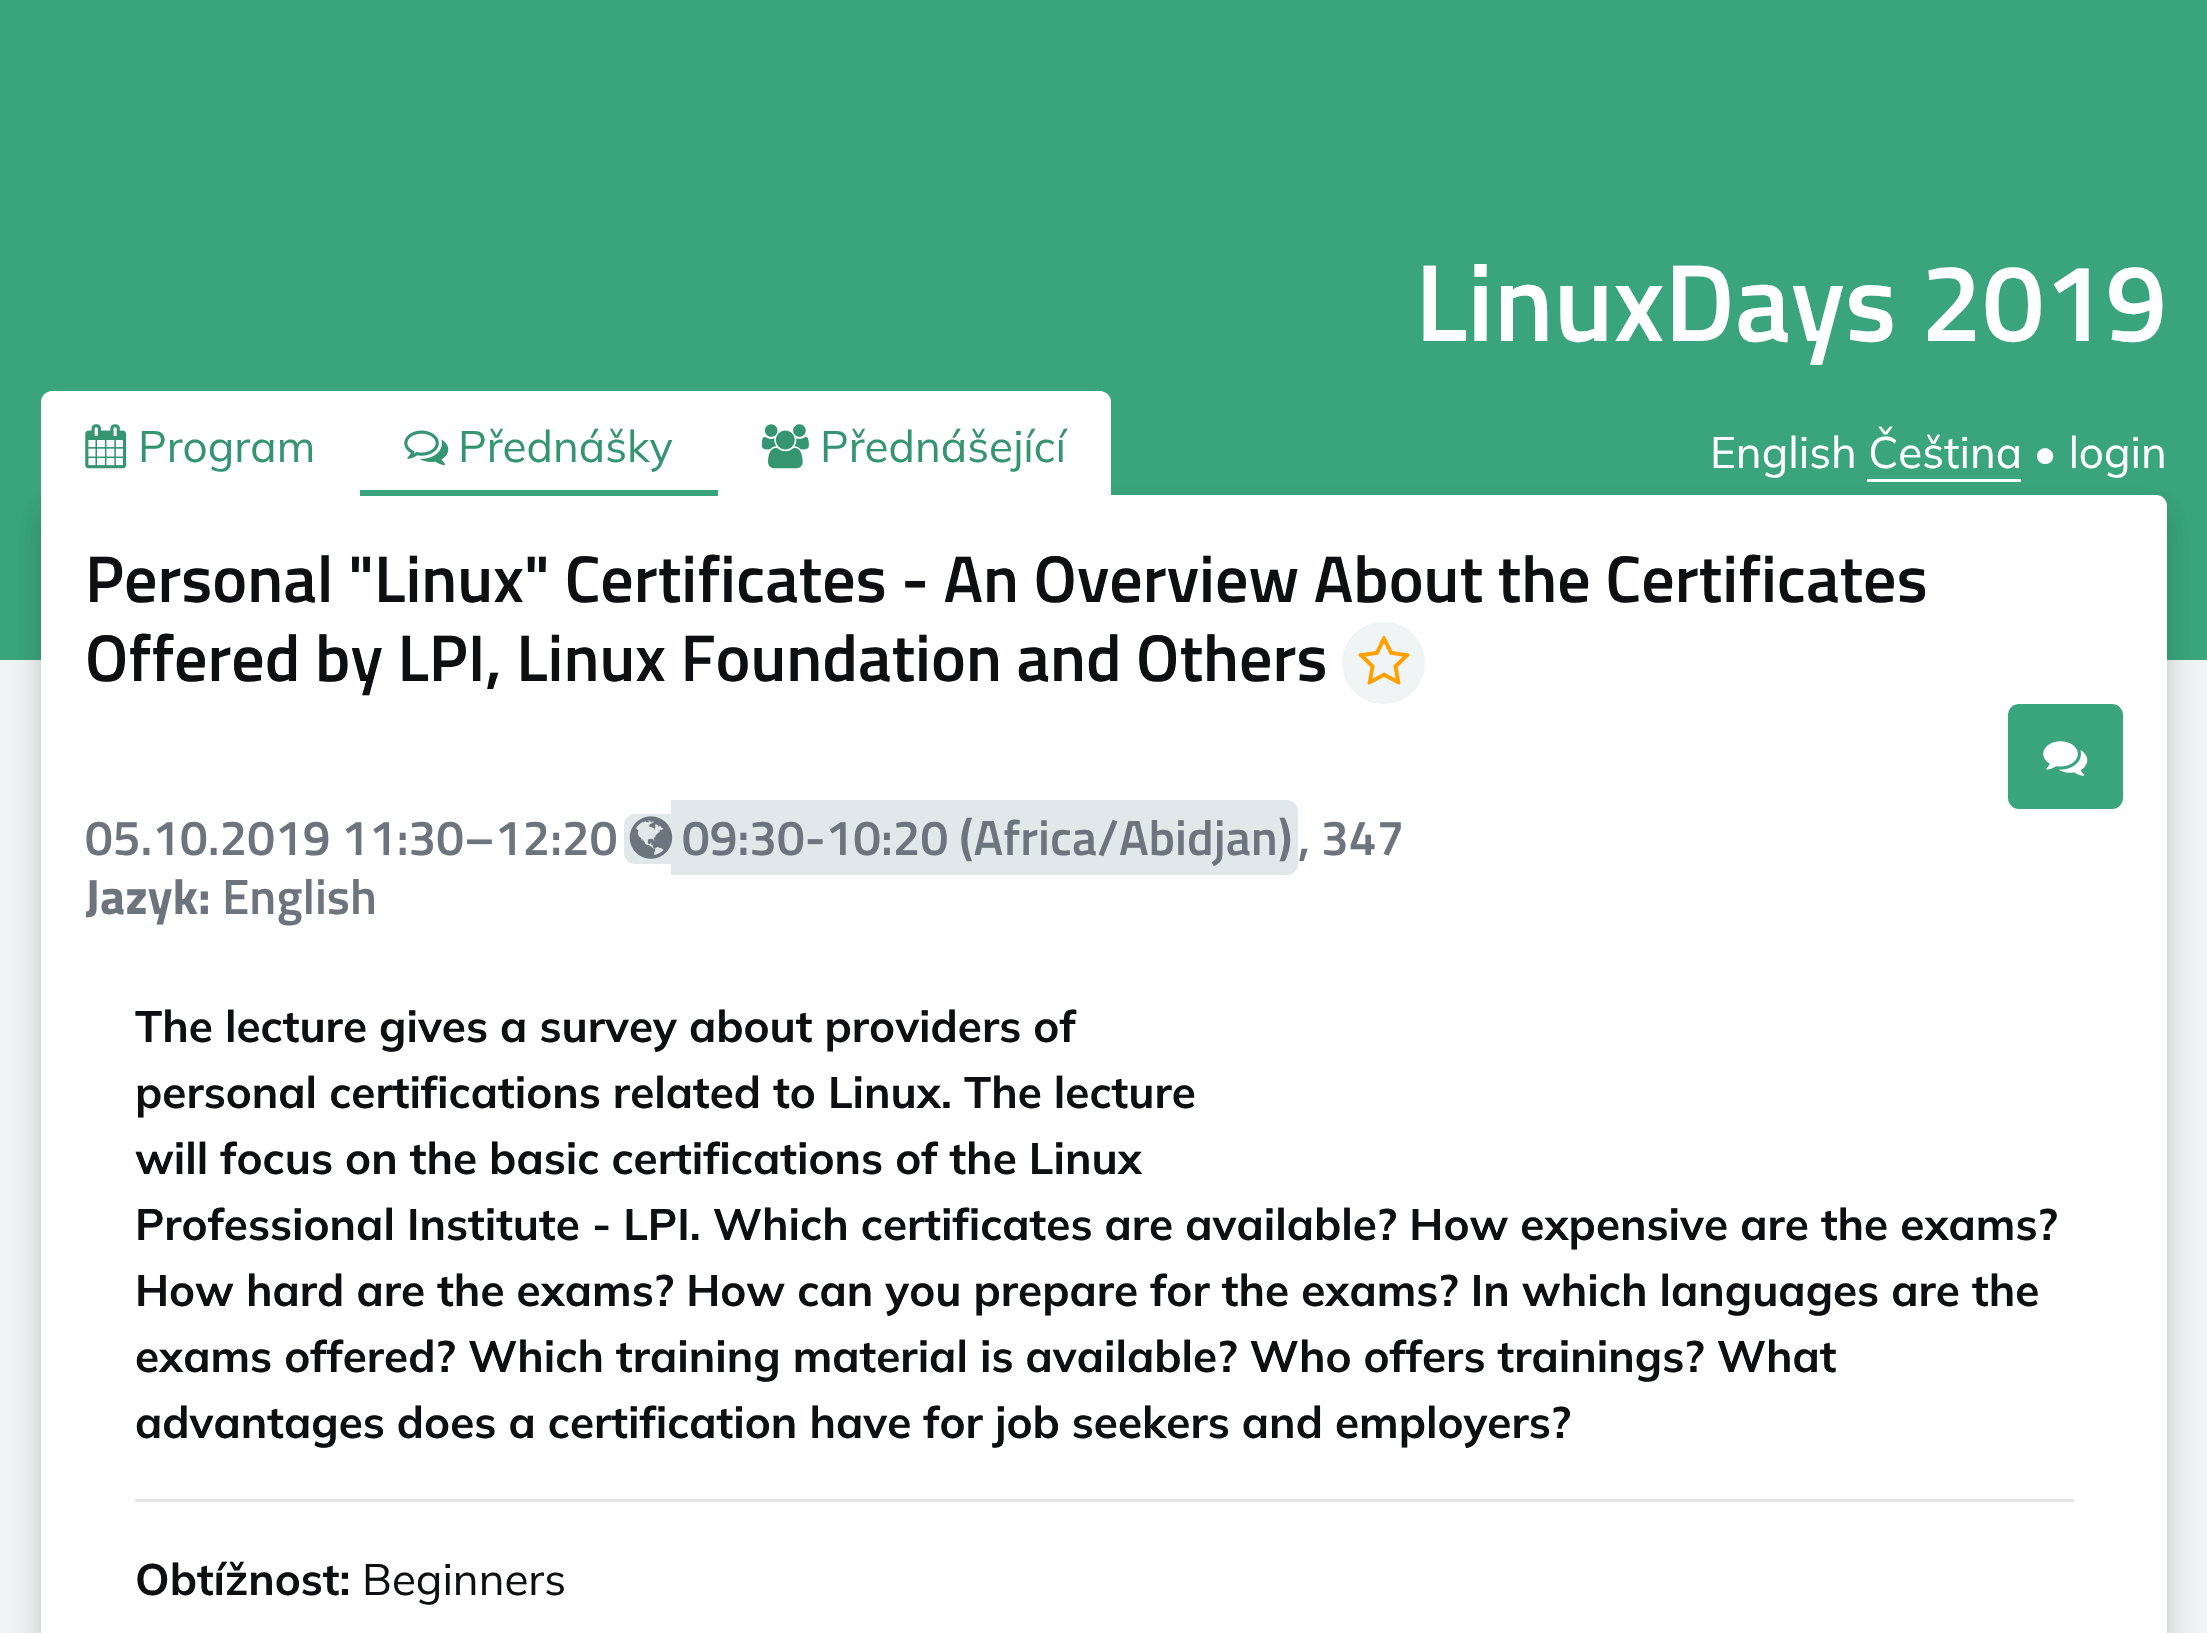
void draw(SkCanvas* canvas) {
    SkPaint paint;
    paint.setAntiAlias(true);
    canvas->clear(0xFFEEF5F4);
    paint.setColor(0xFF3AA57C);
    canvas->drawRect(SkRect::MakeXYWH(0, 0, 2207, 660), paint);
    SkFont font1(fontMgr->matchFamilyStyle("Titillium Web", SkFontStyle(600, SkFontStyle::kNormal_Width, SkFontStyle::kUpright_Slant)), 110);
    font1.setSubpixel(true);
    paint.setColor(0xFFFFFFFF);
    canvas->drawString("LinuxDays 2019", 1415, 341, font1, paint);
    canvas->drawRect(SkRect::MakeXYWH(1867, 479, 154, 3), paint);
    paint.setColor(0x33000000);
    paint.setMaskFilter(SkMaskFilter::MakeBlur(kNormal_SkBlurStyle, 14));
    canvas->drawRoundRect(SkRect::MakeXYWH(41, 509, 2126, 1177), 11, 11, paint);
    paint.setMaskFilter(nullptr);
    paint.setColor(0xFFFFFFFF);
    canvas->drawRoundRect(SkRect::MakeXYWH(41, 495, 2126, 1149), 11, 11, paint);
    canvas->drawPath(SkPathBuilder().moveTo(52, 391).lineTo(1100, 391).cubicTo(1106, 391, 1111, 396, 1111, 402).lineTo(1111, 506).lineTo(41, 506).lineTo(41, 402).cubicTo(41, 396, 46, 391, 52, 391).close().detach(), paint);
    canvas->drawImageRect(SkImages::DeferredFromEncodedData(SkData::MakeFromFileName("img1.png")), SkRect::MakeXYWH(85, 424, 42, 45), SkSamplingOptions());
    SkFont font2(fontMgr->matchFamilyStyle("Mulish", SkFontStyle(200, SkFontStyle::kNormal_Width, SkFontStyle::kUpright_Slant)), 44);
    font2.setSubpixel(true);
    paint.setColor(0xFF349570);
    canvas->drawString("Program", 138, 462, font2, paint);
    paint.setColor(0xFF3AA57C);
    canvas->drawRect(SkRect::MakeXYWH(360, 490, 358, 6), paint);
    canvas->drawImageRect(SkImages::DeferredFromEncodedData(SkData::MakeFromFileName("img2.png")), SkRect::MakeXYWH(404, 430, 45, 36), SkSamplingOptions());
    paint.setColor(0xFF349570);
    canvas->drawString("Přednášky", 458, 462, font2, paint);
    canvas->drawImageRect(SkImages::DeferredFromEncodedData(SkData::MakeFromFileName("img3.png")), SkRect::MakeXYWH(761, 424, 48, 45), SkSamplingOptions());
    canvas->drawString("Přednášející", 820, 462, font2, paint);
    paint.setColor(0xFFFFFFFF);
    canvas->drawString("English Čeština • login", 1710, 468, font2, paint);
    SkFont font3(fontMgr->matchFamilyStyle("Titillium Web", SkFontStyle(600, SkFontStyle::kNormal_Width, SkFontStyle::kUpright_Slant)), 66);
    font3.setSubpixel(true);
    paint.setColor(0xFF0D0F10);
    canvas->drawString("Personal \"Linux\" Certificates - An Overview About the Certificates", 85, 602, font3, paint);
    canvas->drawString("Offered by LPI, Linux Foundation and Others", 85, 681, font3, paint);
    paint.setColor(0xFFEEF5F4);
    canvas->drawRoundRect(SkRect::MakeXYWH(1342, 622, 83, 82), 41, 41, paint);
    canvas->drawImageRect(SkImages::DeferredFromEncodedData(SkData::MakeFromFileName("img4.png")), SkRect::MakeXYWH(1358, 635, 52, 50), SkSamplingOptions());
    paint.setColor(0xFF3AA57C);
    canvas->drawRoundRect(SkRect::MakeXYWH(2009.5f, 705.5f, 112, 102), 9.5f, 9.5f, paint);
    paint.setStyle(SkPaint::kStroke_Style);
    paint.setStrokeWidth(3);
    canvas->drawRoundRect(SkRect::MakeXYWH(2009.5f, 705.5f, 112, 102), 9.5f, 9.5f, paint);
    canvas->drawImageRect(SkImages::DeferredFromEncodedData(SkData::MakeFromFileName("img5.png")), SkRect::MakeXYWH(2043, 741, 45, 35), SkSamplingOptions());
    SkFont font4(fontMgr->matchFamilyStyle("Titillium Web", SkFontStyle(600, SkFontStyle::kNormal_Width, SkFontStyle::kUpright_Slant)), 49.5f);
    font4.setSubpixel(true);
    paint.setStyle(SkPaint::kFill_Style);
    paint.setColor(0xFF6C757D);
    canvas->drawString("05.10.2019 11:30", 85, 855, font4, paint);
    canvas->drawString("–12:20", 464, 855, font4, paint);
    paint.setColor(0xFFE0E8E9);
    canvas->drawPath(SkPathBuilder().moveTo(635, 814).lineTo(671, 814).lineTo(671, 864).lineTo(635, 864).cubicTo(629, 864, 624, 859, 624, 853).lineTo(624, 825).cubicTo(624, 819, 629, 814, 635, 814).close().detach(), paint);
    canvas->drawPath(SkPathBuilder().moveTo(671, 800).lineTo(1287, 800).cubicTo(1293, 800, 1298, 805, 1298, 811).lineTo(1298, 864).cubicTo(1298, 870, 1293, 875, 1287, 875).lineTo(671, 875).close().detach(), paint);
    canvas->drawImageRect(SkImages::DeferredFromEncodedData(SkData::MakeFromFileName("img6.png")), SkRect::MakeXYWH(629, 816, 44, 43), SkSamplingOptions());
    paint.setColor(0xFF6C757D);
    canvas->drawString("09:30-10:20 (Africa/Abidjan)", 682, 855, font4, paint);
    canvas->drawString(", 347", 1298, 855, font4, paint);
    SkFont font5(fontMgr->matchFamilyStyle("Titillium Web", SkFontStyle::Bold()), 49.5f);
    font5.setSubpixel(true);
    canvas->drawString("Jazyk:", 85, 914, font5, paint);
    canvas->drawString("English", 222, 914, font4, paint);
    SkFont font6(fontMgr->matchFamilyStyle("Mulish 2", SkFontStyle(200, SkFontStyle::kNormal_Width, SkFontStyle::kUpright_Slant)), 44);
    font6.setSubpixel(true);
    paint.setColor(0xFF0D0F10);
    canvas->drawString("The lecture gives a survey about providers of", 135, 1042, font6, paint);
    canvas->drawString("personal certifications related to Linux. The lecture", 135, 1108, font6, paint);
    canvas->drawString("will focus on the basic certifications of the Linux", 135, 1174, font6, paint);
    canvas->drawString("Professional Institute - LPI. Which certificates are available? How expensive are the exams?", 135, 1240, font6, paint);
    canvas->drawString("How hard are the exams? How can you prepare for the exams? In which languages are the", 135, 1306, font6, paint);
    canvas->drawString("exams offered? Which training material is available? Who offers trainings? What", 135, 1372, font6, paint);
    canvas->drawString("advantages does a certification have for job seekers and employers?", 135, 1438, font6, paint);
    paint.setColor(0xFFE6E6E6);
    canvas->drawRect(SkRect::MakeXYWH(135, 1499, 1939, 3), paint);
    paint.setColor(0xFF0D0F10);
    canvas->drawString("Obtížnost:", 135, 1595, font6, paint);
    canvas->drawString("Beginners", 362, 1595, font2, paint);
}
